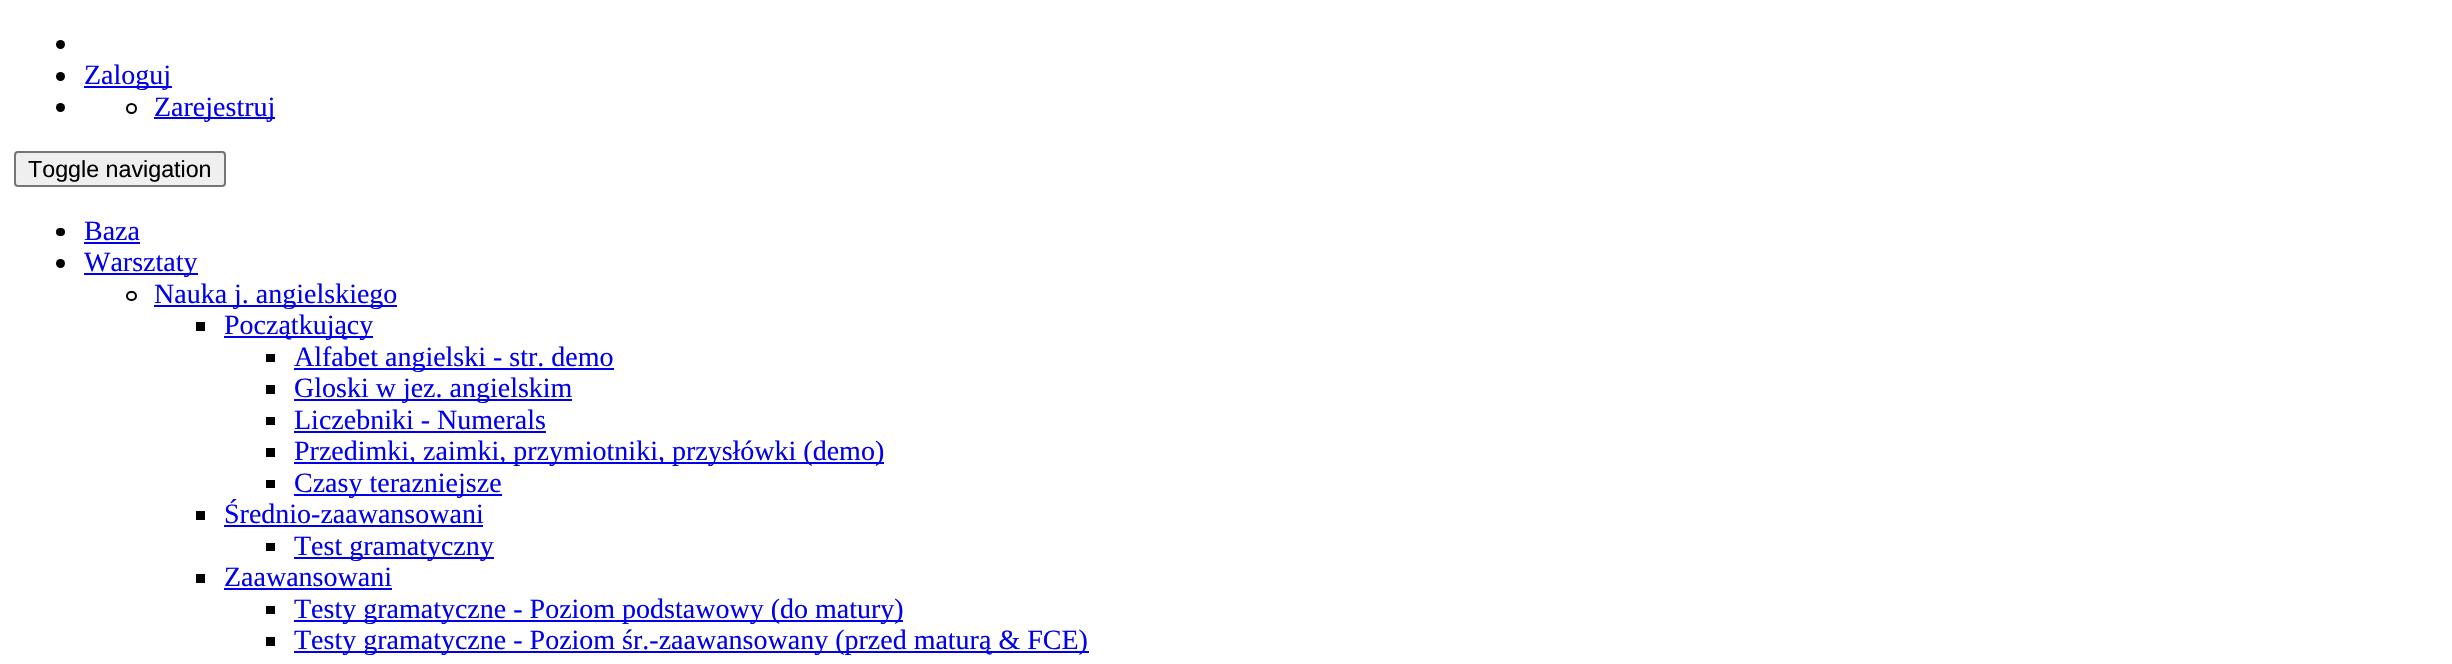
void draw(SkCanvas* canvas) {
    SkPaint paint;
    paint.setAntiAlias(true);
    canvas->clear(0xFFFFFFFF);
    paint.setColor(0xFF000000);
    canvas->drawCircle(60.5f, 44.5f, 4.5f, paint);
    canvas->drawCircle(60.5f, 76.5f, 4.5f, paint);
    paint.setColor(0xFF0000EE);
    canvas->drawRect(SkRect::MakeXYWH(84, 86, 88, 2), paint);
    SkFont font1(fontMgr->matchFamilyStyle("Liberation Serif", SkFontStyle::Normal()), 28);
    font1.setSubpixel(true);
    canvas->drawString("Zaloguj", 84, 84, font1, paint);
    paint.setColor(0xFF000000);
    canvas->drawCircle(60.5f, 107.5f, 4.5f, paint);
    paint.setStyle(SkPaint::kStroke_Style);
    paint.setStrokeWidth(2);
    canvas->drawCircle(131.5f, 108.5f, 4.5f, paint);
    paint.setStyle(SkPaint::kFill_Style);
    paint.setColor(0xFF0000EE);
    canvas->drawRect(SkRect::MakeXYWH(154, 117, 121, 2), paint);
    canvas->drawString("Zarejestruj", 154, 116, font1, paint);
    paint.setColor(0xFFEFEFEF);
    canvas->drawRoundRect(SkRect::MakeXYWH(15, 152, 210, 34), 3, 3, paint);
    paint.setStyle(SkPaint::kStroke_Style);
    paint.setColor(0xFF767676);
    canvas->drawRoundRect(SkRect::MakeXYWH(15, 152, 210, 34), 3, 3, paint);
    SkFont font2(fontMgr->matchFamilyStyle("Liberation Sans", SkFontStyle::Normal()), 23.25f);
    font2.setSubpixel(true);
    paint.setStyle(SkPaint::kFill_Style);
    paint.setColor(0xFF000000);
    canvas->drawString("Toggle navigation", 28, 177, font2, paint);
    canvas->drawRoundRect(SkRect::MakeXYWH(56, 228, 9, 8), 4, 4, paint);
    paint.setColor(0xFF0000EE);
    canvas->drawString("Baza", 84, 240, font1, paint);
    canvas->drawRect(SkRect::MakeXYWH(84, 242, 56, 2), paint);
    paint.setColor(0xFF000000);
    canvas->drawCircle(60.5f, 263.5f, 4.5f, paint);
    paint.setColor(0xFF0000EE);
    canvas->drawRect(SkRect::MakeXYWH(84, 273, 114, 2), paint);
    canvas->drawString("Warsztaty", 84, 271, font1, paint);
    paint.setStyle(SkPaint::kStroke_Style);
    paint.setColor(0xFF000000);
    canvas->drawRoundRect(SkRect::MakeXYWH(127, 292, 9, 8), 4, 4, paint);
    paint.setStyle(SkPaint::kFill_Style);
    paint.setColor(0xFF0000EE);
    canvas->drawRect(SkRect::MakeXYWH(154, 305, 243, 2), paint);
    canvas->drawString("Nauka j. angielskiego", 154, 303, font1, paint);
    paint.setColor(0xFF000000);
    canvas->drawRect(SkRect::MakeXYWH(196, 322, 9, 9), paint);
    paint.setColor(0xFF0000EE);
    canvas->drawRect(SkRect::MakeXYWH(224, 336, 149, 2), paint);
    canvas->drawString("Początkujący", 224, 334, font1, paint);
    paint.setColor(0xFF000000);
    canvas->drawRect(SkRect::MakeXYWH(266, 354, 9, 8), paint);
    paint.setColor(0xFF0000EE);
    canvas->drawRect(SkRect::MakeXYWH(294, 368, 320, 2), paint);
    canvas->drawString("Alfabet angielski - str. demo", 294, 366, font1, paint);
    paint.setColor(0xFF000000);
    canvas->drawRect(SkRect::MakeXYWH(266, 385, 9, 9), paint);
    paint.setColor(0xFF0000EE);
    canvas->drawRect(SkRect::MakeXYWH(294, 399, 278, 2), paint);
    canvas->drawString("Gloski w jez. angielskim", 294, 397, font1, paint);
    paint.setColor(0xFF000000);
    canvas->drawRect(SkRect::MakeXYWH(266, 417, 9, 8), paint);
    paint.setColor(0xFF0000EE);
    canvas->drawString("Liczebniki - Numerals", 294, 429, font1, paint);
    canvas->drawRect(SkRect::MakeXYWH(294, 431, 252, 2), paint);
    paint.setColor(0xFF000000);
    canvas->drawRect(SkRect::MakeXYWH(266, 448, 9, 9), paint);
    paint.setColor(0xFF0000EE);
    canvas->drawRect(SkRect::MakeXYWH(294, 462, 590, 2), paint);
    canvas->drawString("Przedimki, zaimki, przymiotniki, przysłówki (demo)", 294, 460, font1, paint);
    paint.setColor(0xFF000000);
    canvas->drawRect(SkRect::MakeXYWH(266, 480, 9, 8), paint);
    paint.setColor(0xFF0000EE);
    canvas->drawRect(SkRect::MakeXYWH(294, 494, 208, 2), paint);
    canvas->drawString("Czasy terazniejsze", 294, 492, font1, paint);
    paint.setColor(0xFF000000);
    canvas->drawRect(SkRect::MakeXYWH(196, 511, 9, 9), paint);
    paint.setColor(0xFF0000EE);
    canvas->drawString("Średnio-zaawansowani", 224, 523, font1, paint);
    canvas->drawRect(SkRect::MakeXYWH(224, 525, 259, 2), paint);
    paint.setColor(0xFF000000);
    canvas->drawRect(SkRect::MakeXYWH(266, 543, 9, 8), paint);
    paint.setColor(0xFF0000EE);
    canvas->drawRect(SkRect::MakeXYWH(294, 557, 200, 2), paint);
    canvas->drawString("Test gramatyczny", 294, 555, font1, paint);
    paint.setColor(0xFF000000);
    canvas->drawRect(SkRect::MakeXYWH(196, 574, 9, 9), paint);
    paint.setColor(0xFF0000EE);
    canvas->drawString("Zaawansowani", 224, 586, font1, paint);
    canvas->drawRect(SkRect::MakeXYWH(224, 588, 168, 2), paint);
    paint.setColor(0xFF000000);
    canvas->drawRect(SkRect::MakeXYWH(266, 606, 9, 8), paint);
    paint.setColor(0xFF0000EE);
    canvas->drawRect(SkRect::MakeXYWH(294, 620, 609, 2), paint);
    canvas->drawString("Testy gramatyczne - Poziom podstawowy (do matury)", 294, 618, font1, paint);
    paint.setColor(0xFF000000);
    canvas->drawRect(SkRect::MakeXYWH(266, 637, 9, 9), paint);
    paint.setColor(0xFF0000EE);
    canvas->drawRect(SkRect::MakeXYWH(294, 651, 795, 2), paint);
    canvas->drawString("Testy gramatyczne - Poziom śr.-zaawansowany (przed maturą & FCE)", 294, 649, font1, paint);
}
